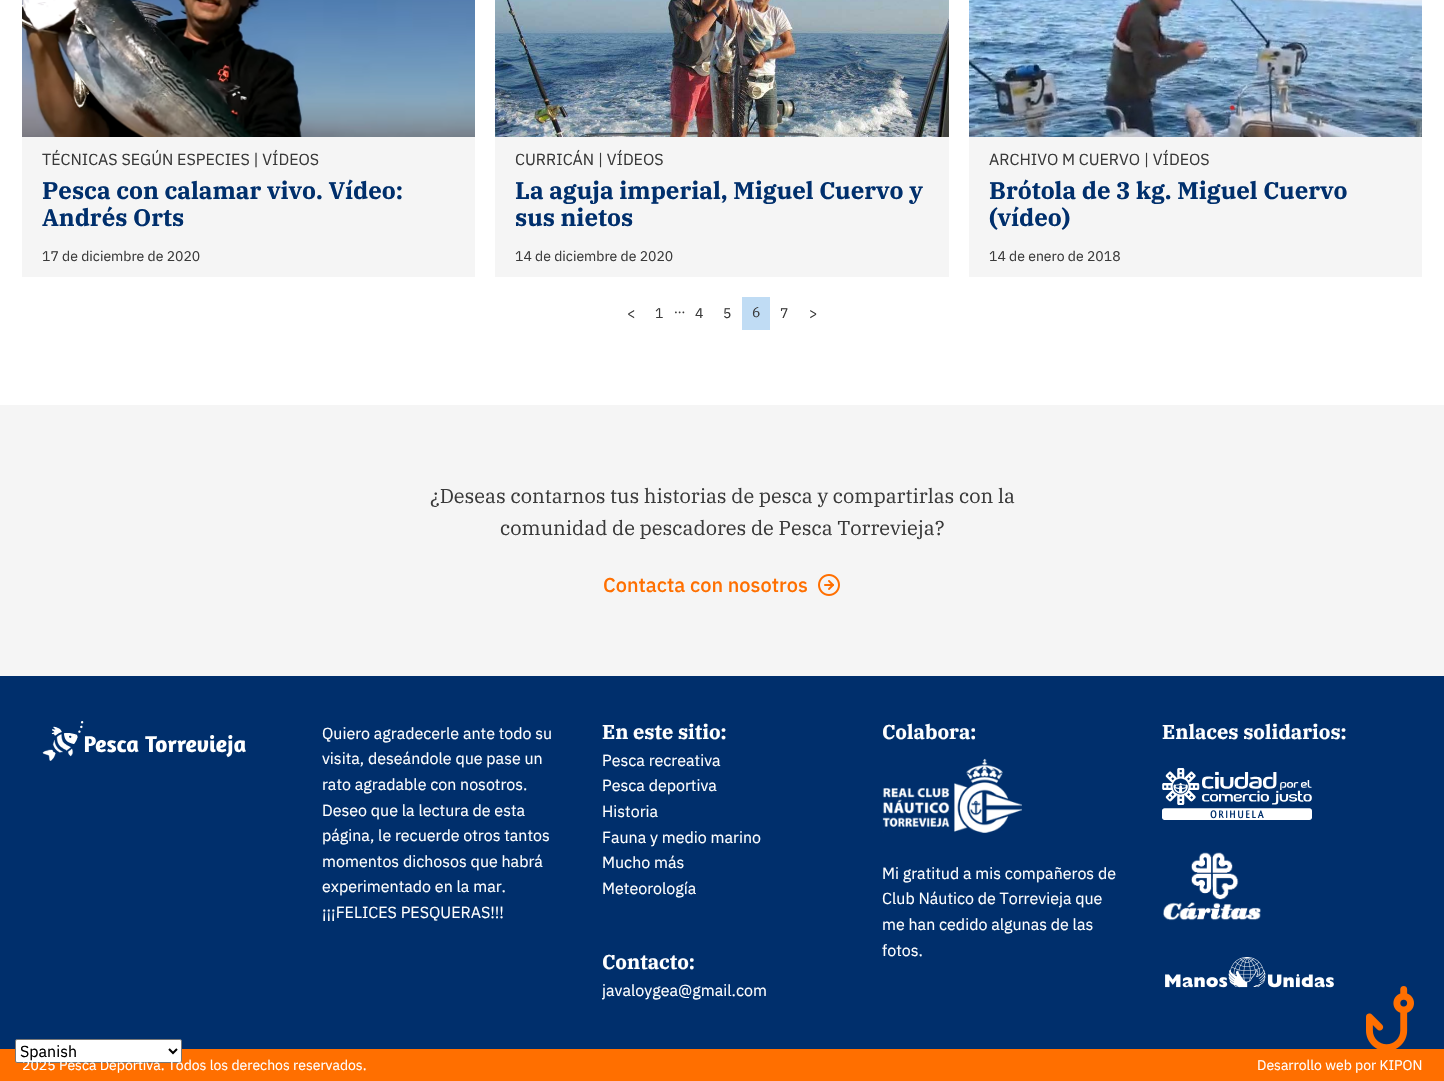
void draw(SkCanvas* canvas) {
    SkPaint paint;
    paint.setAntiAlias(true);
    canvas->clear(0xFFFFFFFF);
    canvas->drawImageRect(SkImages::DeferredFromEncodedData(SkData::MakeFromFileName("img1.png")), SkRect::MakeXYWH(22, 0, 453, 137), SkSamplingOptions());
    paint.setColor(0xFFF5F5F5);
    canvas->drawRect(SkRect::MakeXYWH(22, 137, 453, 140), paint);
    SkFont font1(fontMgr->matchFamilyStyle("IBM Plex Sans", SkFontStyle::Normal()), 16);
    font1.setSubpixel(true);
    paint.setColor(0xFF3A3A3A);
    canvas->drawString("TÉCNICAS SEGÚN ESPECIES | VÍDEOS", 42, 165, font1, paint);
    SkFont font2(fontMgr->matchFamilyStyle("IBM Plex Serif", SkFontStyle::Bold()), 24);
    font2.setSubpixel(true);
    paint.setColor(0xFF002F6C);
    canvas->drawString("Pesca con calamar vivo. Vídeo:", 42, 199, font2, paint);
    canvas->drawString("Andrés Orts", 42, 226, font2, paint);
    SkFont font3(fontMgr->matchFamilyStyle("IBM Plex Sans", SkFontStyle::Normal()), 14);
    font3.setSubpixel(true);
    paint.setColor(0xFF3A3A3A);
    canvas->drawString("17 de diciembre de 2020", 42, 261, font3, paint);
    canvas->drawImageRect(SkImages::DeferredFromEncodedData(SkData::MakeFromFileName("img2.png")), SkRect::MakeXYWH(495, 0, 454, 137), SkSamplingOptions());
    paint.setColor(0xFFF5F5F5);
    canvas->drawRect(SkRect::MakeXYWH(495, 137, 454, 140), paint);
    paint.setColor(0xFF3A3A3A);
    canvas->drawString("CURRICÁN | VÍDEOS", 515, 165, font1, paint);
    paint.setColor(0xFF002F6C);
    canvas->drawString("La aguja imperial, Miguel Cuervo y", 515, 199, font2, paint);
    canvas->drawString("sus nietos", 515, 226, font2, paint);
    paint.setColor(0xFF3A3A3A);
    canvas->drawString("14 de diciembre de 2020", 515, 261, font3, paint);
    canvas->drawImageRect(SkImages::DeferredFromEncodedData(SkData::MakeFromFileName("img3.png")), SkRect::MakeXYWH(969, 0, 453, 137), SkSamplingOptions());
    paint.setColor(0xFFF5F5F5);
    canvas->drawRect(SkRect::MakeXYWH(969, 137, 453, 140), paint);
    paint.setColor(0xFF3A3A3A);
    canvas->drawString("ARCHIVO M CUERVO | VÍDEOS", 989, 165, font1, paint);
    paint.setColor(0xFF002F6C);
    canvas->drawString("Brótola de 3 kg. Miguel Cuervo", 989, 199, font2, paint);
    canvas->drawString("(vídeo)", 989, 226, font2, paint);
    paint.setColor(0xFF3A3A3A);
    canvas->drawString("14 de enero de 2018", 989, 261, font3, paint);
    canvas->drawString("<", 627, 318, font3, paint);
    canvas->drawString("1", 655, 318, font3, paint);
    SkFont font4(fontMgr->matchFamilyStyle("IBM Plex Serif", SkFontStyle::Normal()), 14);
    font4.setSubpixel(true);
    canvas->drawString("…", 674, 313, font4, paint);
    canvas->drawString("4", 695, 318, font3, paint);
    canvas->drawString("5", 723, 318, font3, paint);
    paint.setColor(0xFFC0DCF4);
    canvas->drawRect(SkRect::MakeXYWH(742, 297, 28, 33), paint);
    paint.setColor(0xFF3A3A3A);
    canvas->drawString("6", 752, 317, font4, paint);
    canvas->drawString("7", 780, 318, font3, paint);
    canvas->drawString(">", 809, 318, font3, paint);
    paint.setColor(0xFFF5F5F5);
    canvas->drawRect(SkRect::MakeXYWH(0, 405, 1444, 271), paint);
    SkFont font5(fontMgr->matchFamilyStyle("IBM Plex Serif", SkFontStyle::Normal()), 20);
    font5.setSubpixel(true);
    paint.setColor(0xFF3A3A3A);
    canvas->drawString("¿Deseas contarnos tus historias de pesca y compartirlas con la", 430, 503, font5, paint);
    canvas->drawString("comunidad de pescadores de Pesca Torrevieja?", 500, 535, font5, paint);
    SkFont font6(fontMgr->matchFamilyStyle("IBM Plex Sans", SkFontStyle(500, SkFontStyle::kNormal_Width, SkFontStyle::kUpright_Slant)), 20);
    font6.setSubpixel(true);
    paint.setColor(0xFFFF6F00);
    canvas->drawString("Contacta con nosotros", 603, 592, font6, paint);
    canvas->drawImageRect(SkImages::DeferredFromEncodedData(SkData::MakeFromFileName("img4.png")), SkRect::MakeXYWH(818, 574, 22, 22), SkSamplingOptions());
    paint.setColor(0xFF002F6C);
    canvas->drawRect(SkRect::MakeXYWH(0, 676, 1444, 373), paint);
    canvas->drawImageRect(SkImages::DeferredFromEncodedData(SkData::MakeFromFileName("img5.png")), SkRect::MakeXYWH(42, 721, 204, 40), SkSamplingOptions());
    paint.setColor(0xFFFFFFFF);
    canvas->drawString("Quiero agradecerle ante todo su", 322, 739, font1, paint);
    canvas->drawString("visita, deseándole que pase un", 322, 764, font1, paint);
    canvas->drawString("rato agradable con nosotros.", 322, 790, font1, paint);
    canvas->drawString("Deseo que la lectura de esta", 322, 816, font1, paint);
    canvas->drawString("página, le recuerde otros tantos", 322, 841, font1, paint);
    canvas->drawString("momentos dichosos que habrá", 322, 867, font1, paint);
    canvas->drawString("experimentado en la mar.", 322, 892, font1, paint);
    canvas->drawString("¡¡¡FELICES PESQUERAS!!!", 322, 918, font1, paint);
    SkFont font7(fontMgr->matchFamilyStyle("IBM Plex Serif", SkFontStyle::Bold()), 20);
    font7.setSubpixel(true);
    canvas->drawString("En este sitio:", 602, 739, font7, paint);
    canvas->drawString("Pesca recreativa", 602, 766, font1, paint);
    canvas->drawString("Pesca deportiva", 602, 791, font1, paint);
    canvas->drawString("Historia", 602, 817, font1, paint);
    canvas->drawString("Fauna y medio marino", 602, 843, font1, paint);
    canvas->drawString("Mucho más", 602, 868, font1, paint);
    canvas->drawString("Meteorología", 602, 894, font1, paint);
    canvas->drawString("Contacto:", 602, 969, font7, paint);
    canvas->drawString("javaloygea@gmail.com", 602, 996, font1, paint);
    canvas->drawString("Colabora:", 882, 739, font7, paint);
    canvas->drawImageRect(SkImages::DeferredFromEncodedData(SkData::MakeFromFileName("img6.png")), SkRect::MakeXYWH(882, 758, 140, 75), SkSamplingOptions());
    canvas->drawString("Mi gratitud a mis compañeros de", 882, 879, font1, paint);
    canvas->drawString("Club Náutico de Torrevieja que", 882, 904, font1, paint);
    canvas->drawString("me han cedido algunas de las", 882, 930, font1, paint);
    canvas->drawString("fotos.", 882, 956, font1, paint);
    canvas->drawString("Enlaces solidarios:", 1162, 739, font7, paint);
    canvas->drawImageRect(SkImages::DeferredFromEncodedData(SkData::MakeFromFileName("img7.png")), SkRect::MakeXYWH(1162, 768, 150, 52), SkSamplingOptions());
    canvas->drawImageRect(SkImages::DeferredFromEncodedData(SkData::MakeFromFileName("img8.png")), SkRect::MakeXYWH(1163, 852, 98, 69), SkSamplingOptions());
    canvas->drawImageRect(SkImages::DeferredFromEncodedData(SkData::MakeFromFileName("img9.png")), SkRect::MakeXYWH(1165, 957, 169, 31), SkSamplingOptions());
    canvas->drawImageRect(SkImages::DeferredFromEncodedData(SkData::MakeFromFileName("img10.png")), SkRect::MakeXYWH(1366, 986, 48, 63), SkSamplingOptions());
    paint.setColor(0xFFFF6F00);
    canvas->drawRect(SkRect::MakeXYWH(0, 1049, 1444, 32), paint);
    paint.setColor(0xFFFFFFFF);
    canvas->drawRoundRect(SkRect::MakeXYWH(15.5f, 1039.5f, 166, 23), 1.5f, 1.5f, paint);
    paint.setStyle(SkPaint::kStroke_Style);
    paint.setStrokeWidth(1);
    paint.setColor(0xFF767676);
    canvas->drawRoundRect(SkRect::MakeXYWH(15.5f, 1039.5f, 166, 23), 1.5f, 1.5f, paint);
    paint.setStrokeWidth(2);
    paint.setColor(0xFF000000);
    canvas->drawPath(SkPathBuilder().moveTo(169, 1049).lineTo(173, 1053).lineTo(177, 1049).detach(), paint);
    paint.setStyle(SkPaint::kFill_Style);
    canvas->drawString("Spanish", 20, 1057, font1, paint);
    paint.setColor(0xFFFFFFFF);
    canvas->drawString("2025 Pesca Deportiva. Todos los derechos reservados.", 22, 1070, font3, paint);
    canvas->drawString("Desarrollo web por KIPON", 1257, 1070, font3, paint);
}
